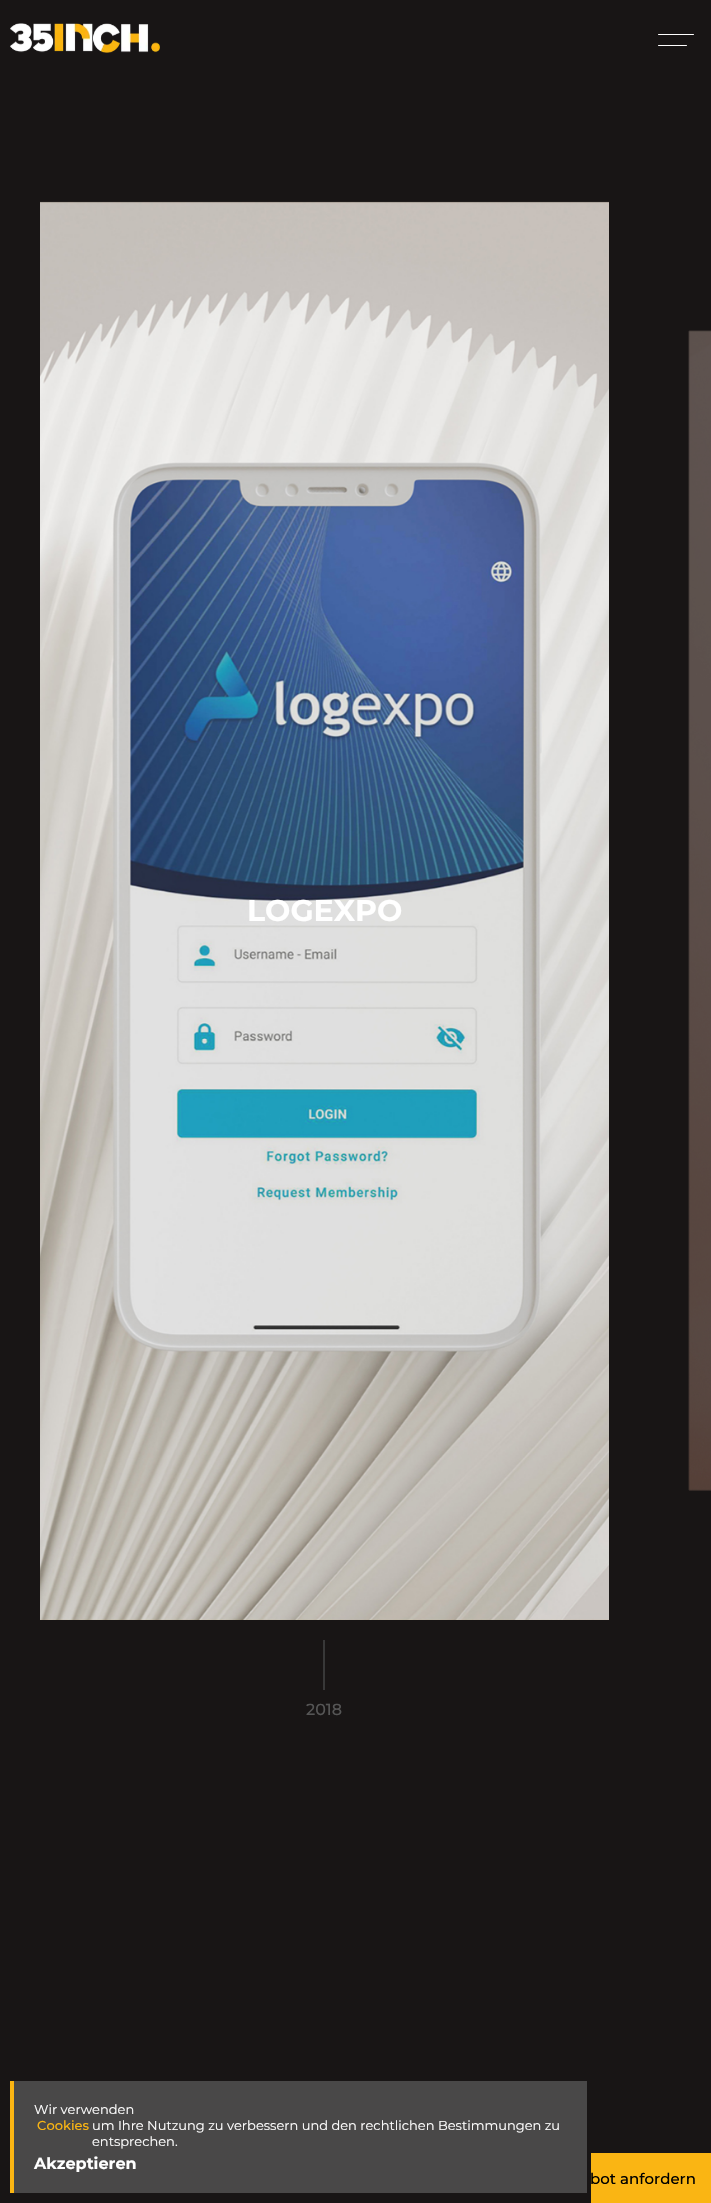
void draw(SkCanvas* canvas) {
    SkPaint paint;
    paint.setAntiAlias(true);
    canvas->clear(0xFF181515);
    canvas->drawImageRect(SkImages::DeferredFromEncodedData(SkData::MakeFromFileName("img1.png")), SkRect::MakeXYWH(10, 23, 150, 30), SkSamplingOptions());
    paint.setColor(0xFFFFFFFF);
    canvas->drawRoundRect(SkRect::MakeXYWH(658, 34, 36, 1), 0.5f, 0.5f, paint);
    canvas->drawRoundRect(SkRect::MakeXYWH(658, 45, 29, 1), 0.5f, 0.5f, paint);
    canvas->drawImageRect(SkImages::DeferredFromEncodedData(SkData::MakeFromFileName("img2.png")), SkRect::MakeXYWH(40, 201, 569, 1419), SkSamplingOptions());
    SkFont font1(fontMgr->matchFamilyStyle("Montserrat", SkFontStyle::Bold()), 30);
    font1.setSubpixel(true);
    canvas->drawString("LOGEXPO", 247, 921, font1, paint);
    paint.setColor(0xFF383838);
    canvas->drawRect(SkRect::MakeXYWH(323, 1640, 2, 50), paint);
    SkFont font2(fontMgr->matchFamilyStyle("Montserrat", SkFontStyle(500, SkFontStyle::kNormal_Width, SkFontStyle::kUpright_Slant)), 16);
    font2.setSubpixel(true);
    paint.setColor(0xFF555555);
    canvas->drawString("2018", 306, 1715, font2, paint);
    canvas->drawImageRect(SkImages::DeferredFromEncodedData(SkData::MakeFromFileName("img3.png")), SkRect::MakeXYWH(688, 330, 23, 1161), SkSamplingOptions());
    paint.setColor(0xFF494848);
    canvas->drawRect(SkRect::MakeXYWH(14, 2081, 573, 112), paint);
    paint.setColor(0xFFFAB513);
    canvas->drawRect(SkRect::MakeXYWH(10, 2081, 4, 112), paint);
    SkFont font3(fontMgr->matchFamilyStyle("Montserrat", SkFontStyle::Normal()), 13);
    font3.setSubpixel(true);
    paint.setColor(0xFFFFFFFF);
    canvas->drawString("Wir verwenden", 34, 2114, font3, paint);
    SkFont font4(fontMgr->matchFamilyStyle("Montserrat", SkFontStyle(500, SkFontStyle::kNormal_Width, SkFontStyle::kUpright_Slant)), 13);
    font4.setSubpixel(true);
    paint.setColor(0xFFFAB513);
    canvas->drawString("Cookies", 37, 2130, font4, paint);
    paint.setColor(0xFFFFFFFF);
    canvas->drawString("um Ihre Nutzung zu verbessern und den rechtlichen Bestimmungen zu", 92, 2130, font3, paint);
    canvas->drawString("entsprechen.", 92, 2146, font3, paint);
    SkFont font5(fontMgr->matchFamilyStyle("Montserrat", SkFontStyle::Bold()), 16);
    font5.setSubpixel(true);
    canvas->drawString("Akzeptieren", 34, 2169, font5, paint);
    paint.setColor(0xFFFAB513);
    canvas->drawRect(SkRect::MakeXYWH(591, 2153, 120, 50), paint);
    canvas->save();
    canvas->clipRect(SkRect::MakeXYWH(591, 2153, 120, 50));
    SkFont font6(fontMgr->matchFamilyStyle("Montserrat", SkFontStyle(500, SkFontStyle::kNormal_Width, SkFontStyle::kUpright_Slant)), 15);
    font6.setSubpixel(true);
    paint.setColor(0xFF000000);
    canvas->drawString("bot anfordern", 590, 2184, font6, paint);
    canvas->restore();
}
